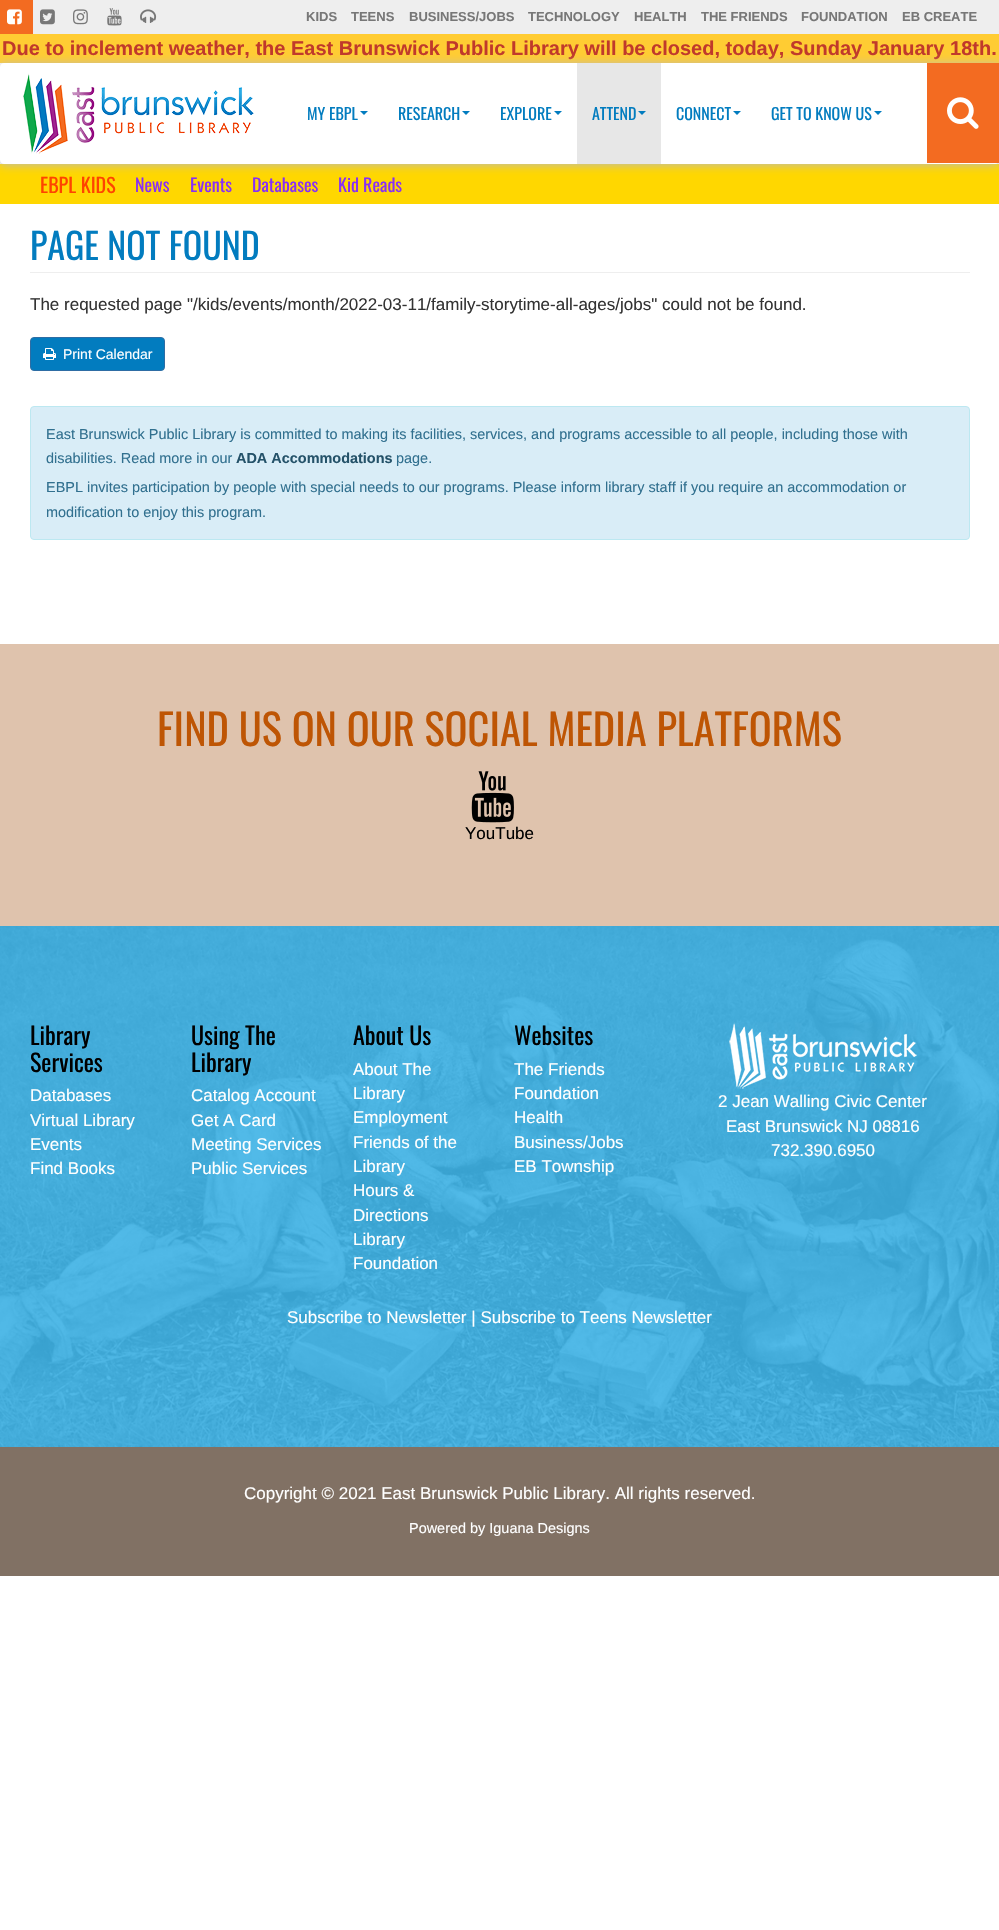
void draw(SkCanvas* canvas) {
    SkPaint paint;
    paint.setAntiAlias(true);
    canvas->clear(0xFFFFFFFF);
    paint.setColor(0xFFEEEEEE);
    canvas->drawRect(SkRect::MakeXYWH(33, 0, 966, 34), paint);
    paint.setColor(0xFFF36B21);
    canvas->drawRect(SkRect::MakeXYWH(0, 0, 33, 34), paint);
    canvas->drawImageRect(SkImages::DeferredFromEncodedData(SkData::MakeFromFileName("img1.png")), SkRect::MakeXYWH(7, 9, 15, 16), SkSamplingOptions());
    canvas->drawImageRect(SkImages::DeferredFromEncodedData(SkData::MakeFromFileName("img2.png")), SkRect::MakeXYWH(40, 9, 15, 16), SkSamplingOptions());
    canvas->drawImageRect(SkImages::DeferredFromEncodedData(SkData::MakeFromFileName("img3.png")), SkRect::MakeXYWH(73, 9, 15, 16), SkSamplingOptions());
    canvas->drawImageRect(SkImages::DeferredFromEncodedData(SkData::MakeFromFileName("img4.png")), SkRect::MakeXYWH(107, 8, 15, 18), SkSamplingOptions());
    canvas->drawImageRect(SkImages::DeferredFromEncodedData(SkData::MakeFromFileName("img5.png")), SkRect::MakeXYWH(140, 9, 17, 14), SkSamplingOptions());
    SkFont font1(fontMgr->matchFamilyStyle("Liberation Sans", SkFontStyle::Bold()), 13);
    font1.setSubpixel(true);
    paint.setColor(0xFF777777);
    canvas->drawString("KIDS", 306, 21, font1, paint);
    canvas->drawString("TEENS", 351, 21, font1, paint);
    canvas->drawString("BUSINESS/JOBS", 409, 21, font1, paint);
    canvas->drawString("TECHNOLOGY", 528, 21, font1, paint);
    canvas->drawString("HEALTH", 634, 21, font1, paint);
    canvas->drawString("THE FRIENDS", 701, 21, font1, paint);
    canvas->drawString("FOUNDATION", 801, 21, font1, paint);
    canvas->drawString("EB CREATE", 902, 21, font1, paint);
    paint.setColor(0xFFFFCC33);
    canvas->drawRect(SkRect::MakeXYWH(0, 34, 999, 29), paint);
    SkFont font2(fontMgr->matchFamilyStyle("Liberation Sans", SkFontStyle::Bold()), 20);
    font2.setSubpixel(true);
    paint.setColor(0xFFC0392B);
    canvas->drawString("Due to inclement weather, the East Brunswick Public Library will be closed, today, Sunday January 18th.", 2, 55, font2, paint);
    paint.setColor(0xFFFFD700);
    canvas->drawRect(SkRect::MakeXYWH(0, 164, 999, 40), paint);
    canvas->save();
    canvas->clipPath(SkPathBuilder(SkPathFillType::kEvenOdd).moveTo(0, 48).lineTo(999, 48).lineTo(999, 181).lineTo(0, 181).close().moveTo(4, 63).lineTo(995, 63).cubicTo(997, 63, 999, 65, 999, 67).lineTo(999, 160).cubicTo(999, 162, 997, 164, 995, 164).lineTo(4, 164).cubicTo(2, 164, 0, 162, 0, 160).lineTo(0, 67).cubicTo(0, 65, 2, 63, 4, 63).close().detach(), true);
    paint.setColor(0xFFBBBBBB);
    paint.setMaskFilter(SkMaskFilter::MakeBlur(kNormal_SkBlurStyle, 5));
    canvas->drawRoundRect(SkRect::MakeXYWH(0, 64, 999, 101), 4, 4, paint);
    paint.setMaskFilter(nullptr);
    canvas->restore();
    canvas->drawImageRect(SkImages::DeferredFromEncodedData(SkData::MakeFromFileName("img6.png")), SkRect::MakeXYWH(23, 73, 231, 81), SkSamplingOptions());
    SkFont font3(fontMgr->matchFamilyStyle("Oswald", SkFontStyle::Normal()), 16);
    font3.setSubpixel(true);
    paint.setColor(0xFF027CBF);
    canvas->drawString("MY EBPL", 307, 120, font3, paint);
    canvas->drawPath(SkPathBuilder().moveTo(360, 111).lineTo(368, 111).lineTo(364, 115).close().detach(), paint);
    canvas->drawString("RESEARCH", 398, 120, font3, paint);
    canvas->drawPath(SkPathBuilder().moveTo(462, 111).lineTo(470, 111).lineTo(466, 115).close().detach(), paint);
    canvas->drawString("EXPLORE", 500, 120, font3, paint);
    canvas->drawPath(SkPathBuilder().moveTo(554, 111).lineTo(562, 111).lineTo(558, 115).close().detach(), paint);
    paint.setColor(0xFFE7E7E7);
    canvas->drawRect(SkRect::MakeXYWH(577, 63, 84, 101), paint);
    paint.setColor(0xFF027CBF);
    canvas->drawString("ATTEND", 592, 120, font3, paint);
    canvas->drawPath(SkPathBuilder().moveTo(638, 111).lineTo(646, 111).lineTo(642, 115).close().detach(), paint);
    canvas->drawString("CONNECT", 676, 120, font3, paint);
    canvas->drawPath(SkPathBuilder().moveTo(733, 111).lineTo(741, 111).lineTo(737, 115).close().detach(), paint);
    canvas->drawString("GET TO KNOW US", 771, 120, font3, paint);
    canvas->drawPath(SkPathBuilder().moveTo(874, 111).lineTo(882, 111).lineTo(878, 115).close().detach(), paint);
    paint.setColor(0xFFF36B21);
    canvas->drawRect(SkRect::MakeXYWH(927, 63, 72, 100), paint);
    canvas->drawImageRect(SkImages::DeferredFromEncodedData(SkData::MakeFromFileName("img7.png")), SkRect::MakeXYWH(947, 97, 32, 32), SkSamplingOptions());
    SkFont font4(fontMgr->matchFamilyStyle("Oswald", SkFontStyle::Normal()), 20);
    font4.setSubpixel(true);
    paint.setColor(0xFFFF4400);
    canvas->drawString("EBPL KIDS", 40, 193, font4, paint);
    SkFont font5(fontMgr->matchFamilyStyle("Oswald", SkFontStyle::Normal()), 18);
    font5.setSubpixel(true);
    paint.setColor(0xFF882FF6);
    canvas->drawString("News", 135, 192, font5, paint);
    canvas->drawString("Events", 190, 192, font5, paint);
    canvas->drawString("Databases", 252, 192, font5, paint);
    canvas->drawString("Kid Reads", 338, 192, font5, paint);
    paint.setColor(0xFFEEEEEE);
    canvas->drawRect(SkRect::MakeXYWH(30, 272, 940, 1), paint);
    SkFont font6(fontMgr->matchFamilyStyle("Oswald", SkFontStyle::Normal()), 36);
    font6.setSubpixel(true);
    paint.setColor(0xFF027CBF);
    canvas->drawString("PAGE NOT FOUND", 30, 260, font6, paint);
    SkFont font7(fontMgr->matchFamilyStyle("Liberation Sans", SkFontStyle::Normal()), 17);
    font7.setSubpixel(true);
    paint.setColor(0xFF333333);
    canvas->drawString("The requested page \"/kids/events/month/2022-03-11/family-storytime-all-ages/jobs\" could not be found.", 30, 310, font7, paint);
    paint.setColor(0xFF027CBF);
    canvas->drawRoundRect(SkRect::MakeXYWH(30.5f, 337.5f, 134, 33), 3.5f, 3.5f, paint);
    paint.setStyle(SkPaint::kStroke_Style);
    paint.setStrokeWidth(1);
    paint.setColor(0xFF2E6DA4);
    canvas->drawRoundRect(SkRect::MakeXYWH(30.5f, 337.5f, 134, 33), 3.5f, 3.5f, paint);
    canvas->drawImageRect(SkImages::DeferredFromEncodedData(SkData::MakeFromFileName("img8.png")), SkRect::MakeXYWH(43, 348, 13, 12), SkSamplingOptions());
    SkFont font8(fontMgr->matchFamilyStyle("Liberation Sans", SkFontStyle::Normal()), 14);
    font8.setSubpixel(true);
    paint.setStyle(SkPaint::kFill_Style);
    paint.setColor(0xFFFFFFFF);
    canvas->drawString("Print Calendar", 63, 359, font8, paint);
    paint.setColor(0xFFD9EDF7);
    canvas->drawRoundRect(SkRect::MakeXYWH(30.5f, 406.5f, 939, 133), 3.5f, 3.5f, paint);
    paint.setStyle(SkPaint::kStroke_Style);
    paint.setColor(0xFFBCE8F1);
    canvas->drawRoundRect(SkRect::MakeXYWH(30.5f, 406.5f, 939, 133), 3.5f, 3.5f, paint);
    SkFont font9(fontMgr->matchFamilyStyle("Liberation Sans", SkFontStyle::Normal()), 14.45f);
    font9.setSubpixel(true);
    paint.setStyle(SkPaint::kFill_Style);
    paint.setColor(0xFF31708F);
    canvas->drawString("East Brunswick Public Library is committed to making its facilities, services, and programs accessible to all people, including those with", 46, 439, font9, paint);
    canvas->drawString("disabilities. Read more in our", 46, 463, font9, paint);
    SkFont font10(fontMgr->matchFamilyStyle("Liberation Sans", SkFontStyle::Bold()), 14.45f);
    font10.setSubpixel(true);
    paint.setColor(0xFF245269);
    canvas->drawString("ADA Accommodations", 236, 463, font10, paint);
    paint.setColor(0xFF31708F);
    canvas->drawString("page.", 396, 463, font9, paint);
    canvas->drawString("EBPL invites participation by people with special needs to our programs. Please inform library staff if you require an accommodation or", 46, 492, font9, paint);
    canvas->drawString("modification to enjoy this program.", 46, 517, font9, paint);
    paint.setColor(0xFFDFC3AD);
    canvas->drawRect(SkRect::MakeXYWH(0, 644, 999, 282), paint);
    SkFont font11(fontMgr->matchFamilyStyle("Oswald", SkFontStyle::Normal()), 42.5f);
    font11.setSubpixel(true);
    paint.setColor(0xFFBE5504);
    canvas->drawString("FIND US ON OUR SOCIAL MEDIA PLATFORMS", 157, 746, font11, paint);
    canvas->drawImageRect(SkImages::DeferredFromEncodedData(SkData::MakeFromFileName("img9.png")), SkRect::MakeXYWH(471, 771, 43, 52), SkSamplingOptions());
    paint.setColor(0xFF000000);
    canvas->drawString("YouTube", 465, 839, font7, paint);
    paint.setColor(0xFF3DB2E6);
    canvas->drawRect(SkRect::MakeXYWH(0, 926, 999, 521), paint);
    canvas->drawImageRect(SkImages::DeferredFromEncodedData(SkData::MakeFromFileName("img10.png")), SkRect::MakeXYWH(0, 926, 999, 521), SkSamplingOptions());
    SkFont font12(fontMgr->matchFamilyStyle("Oswald", SkFontStyle::Normal()), 24);
    font12.setSubpixel(true);
    paint.setColor(0xFF000000);
    canvas->drawString("Library", 30, 1045, font12, paint);
    canvas->drawString("Services", 30, 1072, font12, paint);
    paint.setColor(0xFFFFFFFF);
    canvas->drawString("Databases", 30, 1101, font7, paint);
    canvas->drawString("Virtual Library", 30, 1126, font7, paint);
    canvas->drawString("Events", 30, 1150, font7, paint);
    canvas->drawString("Find Books", 30, 1174, font7, paint);
    paint.setColor(0xFF000000);
    canvas->drawString("Using The", 191, 1045, font12, paint);
    canvas->drawString("Library", 191, 1072, font12, paint);
    paint.setColor(0xFFFFFFFF);
    canvas->drawString("Catalog Account", 191, 1101, font7, paint);
    canvas->drawString("Get A Card", 191, 1126, font7, paint);
    canvas->drawString("Meeting Services", 191, 1150, font7, paint);
    canvas->drawString("Public Services", 191, 1174, font7, paint);
    paint.setColor(0xFF000000);
    canvas->drawString("About Us", 353, 1045, font12, paint);
    paint.setColor(0xFFFFFFFF);
    canvas->drawString("About The", 353, 1075, font7, paint);
    canvas->drawString("Library", 353, 1099, font7, paint);
    canvas->drawString("Employment", 353, 1123, font7, paint);
    canvas->drawString("Friends of the", 353, 1148, font7, paint);
    canvas->drawString("Library", 353, 1172, font7, paint);
    canvas->drawString("Hours &", 353, 1196, font7, paint);
    canvas->drawString("Directions", 353, 1221, font7, paint);
    canvas->drawString("Library", 353, 1245, font7, paint);
    canvas->drawString("Foundation", 353, 1269, font7, paint);
    paint.setColor(0xFF000000);
    canvas->drawString("Websites", 514, 1045, font12, paint);
    paint.setColor(0xFFFFFFFF);
    canvas->drawString("The Friends", 514, 1075, font7, paint);
    canvas->drawString("Foundation", 514, 1099, font7, paint);
    canvas->drawString("Health", 514, 1123, font7, paint);
    canvas->drawString("Business/Jobs", 514, 1148, font7, paint);
    canvas->drawString("EB Township", 514, 1172, font7, paint);
    canvas->drawImageRect(SkImages::DeferredFromEncodedData(SkData::MakeFromFileName("img11.png")), SkRect::MakeXYWH(729, 1022, 188, 67), SkSamplingOptions());
    canvas->drawString("2 Jean Walling Civic Center", 718, 1107, font7, paint);
    canvas->drawString("East Brunswick NJ 08816", 726, 1132, font7, paint);
    canvas->drawString("732.390.6950", 771, 1156, font7, paint);
    canvas->drawString("Subscribe to Newsletter | Subscribe to Teens Newsletter", 287, 1323, font7, paint);
    paint.setColor(0xFF817164);
    canvas->drawRect(SkRect::MakeXYWH(0, 1447, 999, 129), paint);
    paint.setColor(0xFFFFFFFF);
    canvas->drawString("Copyright © 2021 East Brunswick Public Library. All rights reserved.", 244, 1499, font7, paint);
    canvas->drawString("Powered by Iguana Designs", 409, 1533, font9, paint);
}
